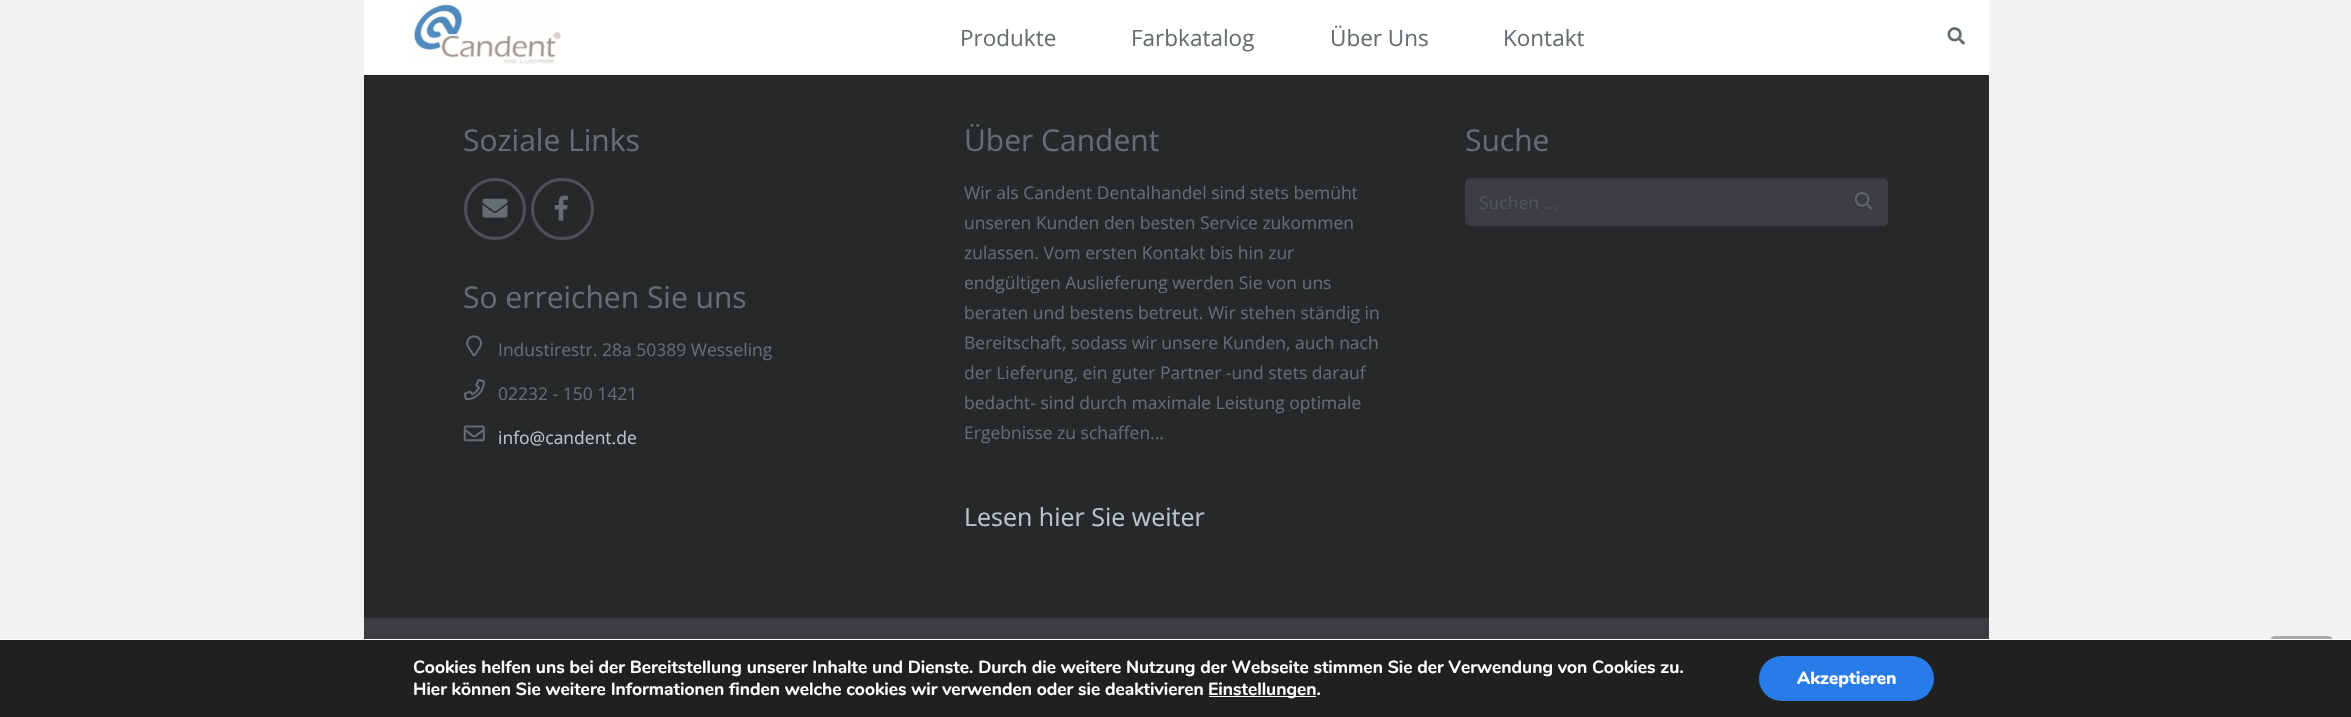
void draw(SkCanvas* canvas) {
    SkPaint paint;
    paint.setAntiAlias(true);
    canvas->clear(0xFFF2F2F2);
    paint.setColor(0xFF242527);
    canvas->drawPath(SkPathBuilder().moveTo(364, 75).lineTo(364, 76).lineTo(1989, 76).lineTo(1989, 1).lineTo(1989, 75).close().detach(), paint);
    paint.setColor(0xFFFFFFFF);
    canvas->drawRect(SkRect::MakeXYWH(364, 0, 1625, 75), paint);
    canvas->drawImageRect(SkImages::DeferredFromEncodedData(SkData::MakeFromFileName("img1.png")), SkRect::MakeXYWH(413, 4, 148, 60), SkSamplingOptions());
    SkFont font1(fontMgr->matchFamilyStyle("Open Sans", SkFontStyle::Normal()), 22.5f);
    font1.setSubpixel(true);
    paint.setColor(0xFF666D70);
    canvas->drawString("Produkte", 960, 46, font1, paint);
    canvas->drawString("Farbkatalog", 1131, 46, font1, paint);
    canvas->drawString("Über Uns", 1330, 46, font1, paint);
    canvas->drawString("Kontakt", 1503, 46, font1, paint);
    canvas->drawImageRect(SkImages::DeferredFromEncodedData(SkData::MakeFromFileName("img2.png")), SkRect::MakeXYWH(1947, 27, 18, 18), SkSamplingOptions());
    paint.setColor(0xFF27282A);
    canvas->drawRect(SkRect::MakeXYWH(364, 76, 1625, 542), paint);
    SkFont font2(fontMgr->matchFamilyStyle("Open Sans", SkFontStyle::Normal()), 30);
    font2.setSubpixel(true);
    paint.setColor(0xFF666D70);
    canvas->drawString("Soziale Links", 463, 151, font2, paint);
    paint.setStyle(SkPaint::kStroke_Style);
    paint.setStrokeWidth(3);
    paint.setColor(0xFF4E5054);
    canvas->drawCircle(495, 209, 29.5f, paint);
    canvas->drawImageRect(SkImages::DeferredFromEncodedData(SkData::MakeFromFileName("img3.png")), SkRect::MakeXYWH(482, 198, 26, 20), SkSamplingOptions());
    canvas->drawRoundRect(SkRect::MakeXYWH(532.5f, 179.5f, 60, 59), 29.5f, 29.5f, paint);
    canvas->drawImageRect(SkImages::DeferredFromEncodedData(SkData::MakeFromFileName("img4.png")), SkRect::MakeXYWH(555, 195, 13, 26), SkSamplingOptions());
    paint.setStyle(SkPaint::kFill_Style);
    paint.setColor(0xFF666D70);
    canvas->drawString("So erreichen Sie uns", 463, 308, font2, paint);
    canvas->drawImageRect(SkImages::DeferredFromEncodedData(SkData::MakeFromFileName("img5.png")), SkRect::MakeXYWH(466, 335, 16, 22), SkSamplingOptions());
    SkFont font3(fontMgr->matchFamilyStyle("Open Sans", SkFontStyle::Normal()), 17.5f);
    font3.setSubpixel(true);
    canvas->drawString("Industirestr. 28a 50389 Wesseling", 498, 356, font3, paint);
    canvas->drawImageRect(SkImages::DeferredFromEncodedData(SkData::MakeFromFileName("img6.png")), SkRect::MakeXYWH(463, 379, 22, 22), SkSamplingOptions());
    canvas->drawString("02232 - 150 1421", 498, 400, font3, paint);
    canvas->drawImageRect(SkImages::DeferredFromEncodedData(SkData::MakeFromFileName("img7.png")), SkRect::MakeXYWH(463, 425, 22, 17), SkSamplingOptions());
    paint.setColor(0xFFB8C6C7);
    canvas->drawString("info@candent.de", 498, 444, font3, paint);
    paint.setColor(0xFF666D70);
    canvas->drawString("Über Candent", 964, 151, font2, paint);
    canvas->drawString("Wir als Candent Dentalhandel sind stets bemüht", 964, 199, font3, paint);
    canvas->drawString("unseren Kunden den besten Service zukommen", 964, 229, font3, paint);
    canvas->drawString("zulassen. Vom ersten Kontakt bis hin zur", 964, 259, font3, paint);
    canvas->drawString("endgültigen Auslieferung werden Sie von uns", 964, 289, font3, paint);
    canvas->drawString("beraten und bestens betreut. Wir stehen ständig in", 964, 319, font3, paint);
    canvas->drawString("Bereitschaft, sodass wir unsere Kunden, auch nach", 964, 349, font3, paint);
    canvas->drawString("der Lieferung, ein guter Partner -und stets darauf", 964, 379, font3, paint);
    canvas->drawString("bedacht- sind durch maximale Leistung optimale", 964, 409, font3, paint);
    canvas->drawString("Ergebnisse zu schaffen...", 964, 439, font3, paint);
    SkFont font4(fontMgr->matchFamilyStyle("Open Sans", SkFontStyle::Normal()), 25);
    font4.setSubpixel(true);
    paint.setColor(0xFFB8C6C7);
    canvas->drawString("Lesen hier Sie weiter", 964, 526, font4, paint);
    paint.setColor(0xFF666D70);
    canvas->drawString("Suche", 1465, 151, font2, paint);
    paint.setColor(0xFF3C3D41);
    canvas->drawRoundRect(SkRect::MakeXYWH(1465, 178, 423, 48), 5, 5, paint);
    paint.setColor(0x14000000);
    canvas->drawPath(SkPathBuilder().moveTo(1470, 179).lineTo(1882, 179).cubicTo(1885, 179, 1888, 181, 1888, 184).cubicTo(1888, 181, 1886, 178, 1883, 178).lineTo(1470, 178).cubicTo(1467, 178, 1465, 181, 1465, 184).cubicTo(1465, 181, 1467, 179, 1470, 179).close().detach(), paint);
    paint.setColor(0xFF515559);
    canvas->drawString("Suchen ...", 1479, 209, font3, paint);
    canvas->drawImageRect(SkImages::DeferredFromEncodedData(SkData::MakeFromFileName("img8.png")), SkRect::MakeXYWH(1855, 192, 18, 18), SkSamplingOptions());
    paint.setColor(0xFF3C3D41);
    canvas->drawRect(SkRect::MakeXYWH(364, 618, 1625, 21), paint);
    paint.setColor(0xFFA9A9A9);
    canvas->drawRoundRect(SkRect::MakeXYWH(2270, 636, 63, 63), 5, 5, paint);
    paint.setColor(0xFF202020);
    canvas->drawRect(SkRect::MakeXYWH(0, 640, 2351, 77), paint);
    paint.setColor(0xFFFFFFFF);
    canvas->drawRect(SkRect::MakeXYWH(0, 639, 2351, 1), paint);
    SkFont font5(fontMgr->matchFamilyStyle("Nunito", SkFontStyle::Bold()), 17.5f);
    font5.setSubpixel(true);
    canvas->drawString("Cookies helfen uns bei der Bereitstellung unserer Inhalte und Dienste. Durch die weitere Nutzung der Webseite stimmen Sie der Verwendung von Cookies zu.", 413, 673, font5, paint);
    canvas->drawString("Hier können Sie weitere Informationen finden welche cookies wir verwenden oder sie deaktivieren", 413, 695, font5, paint);
    canvas->drawRect(SkRect::MakeXYWH(1209, 696, 107, 1), paint);
    canvas->drawString("Einstellungen.", 1208, 695, font5, paint);
    paint.setColor(0xFF277CEA);
    canvas->drawRoundRect(SkRect::MakeXYWH(1759, 656, 175, 45), 22.5f, 22.5f, paint);
    SkFont font6(fontMgr->matchFamilyStyle("Nunito", SkFontStyle(800, SkFontStyle::kNormal_Width, SkFontStyle::kUpright_Slant)), 17.5f);
    font6.setSubpixel(true);
    paint.setColor(0xFFFFFFFF);
    canvas->drawString("Akzeptieren", 1797, 684, font6, paint);
}
